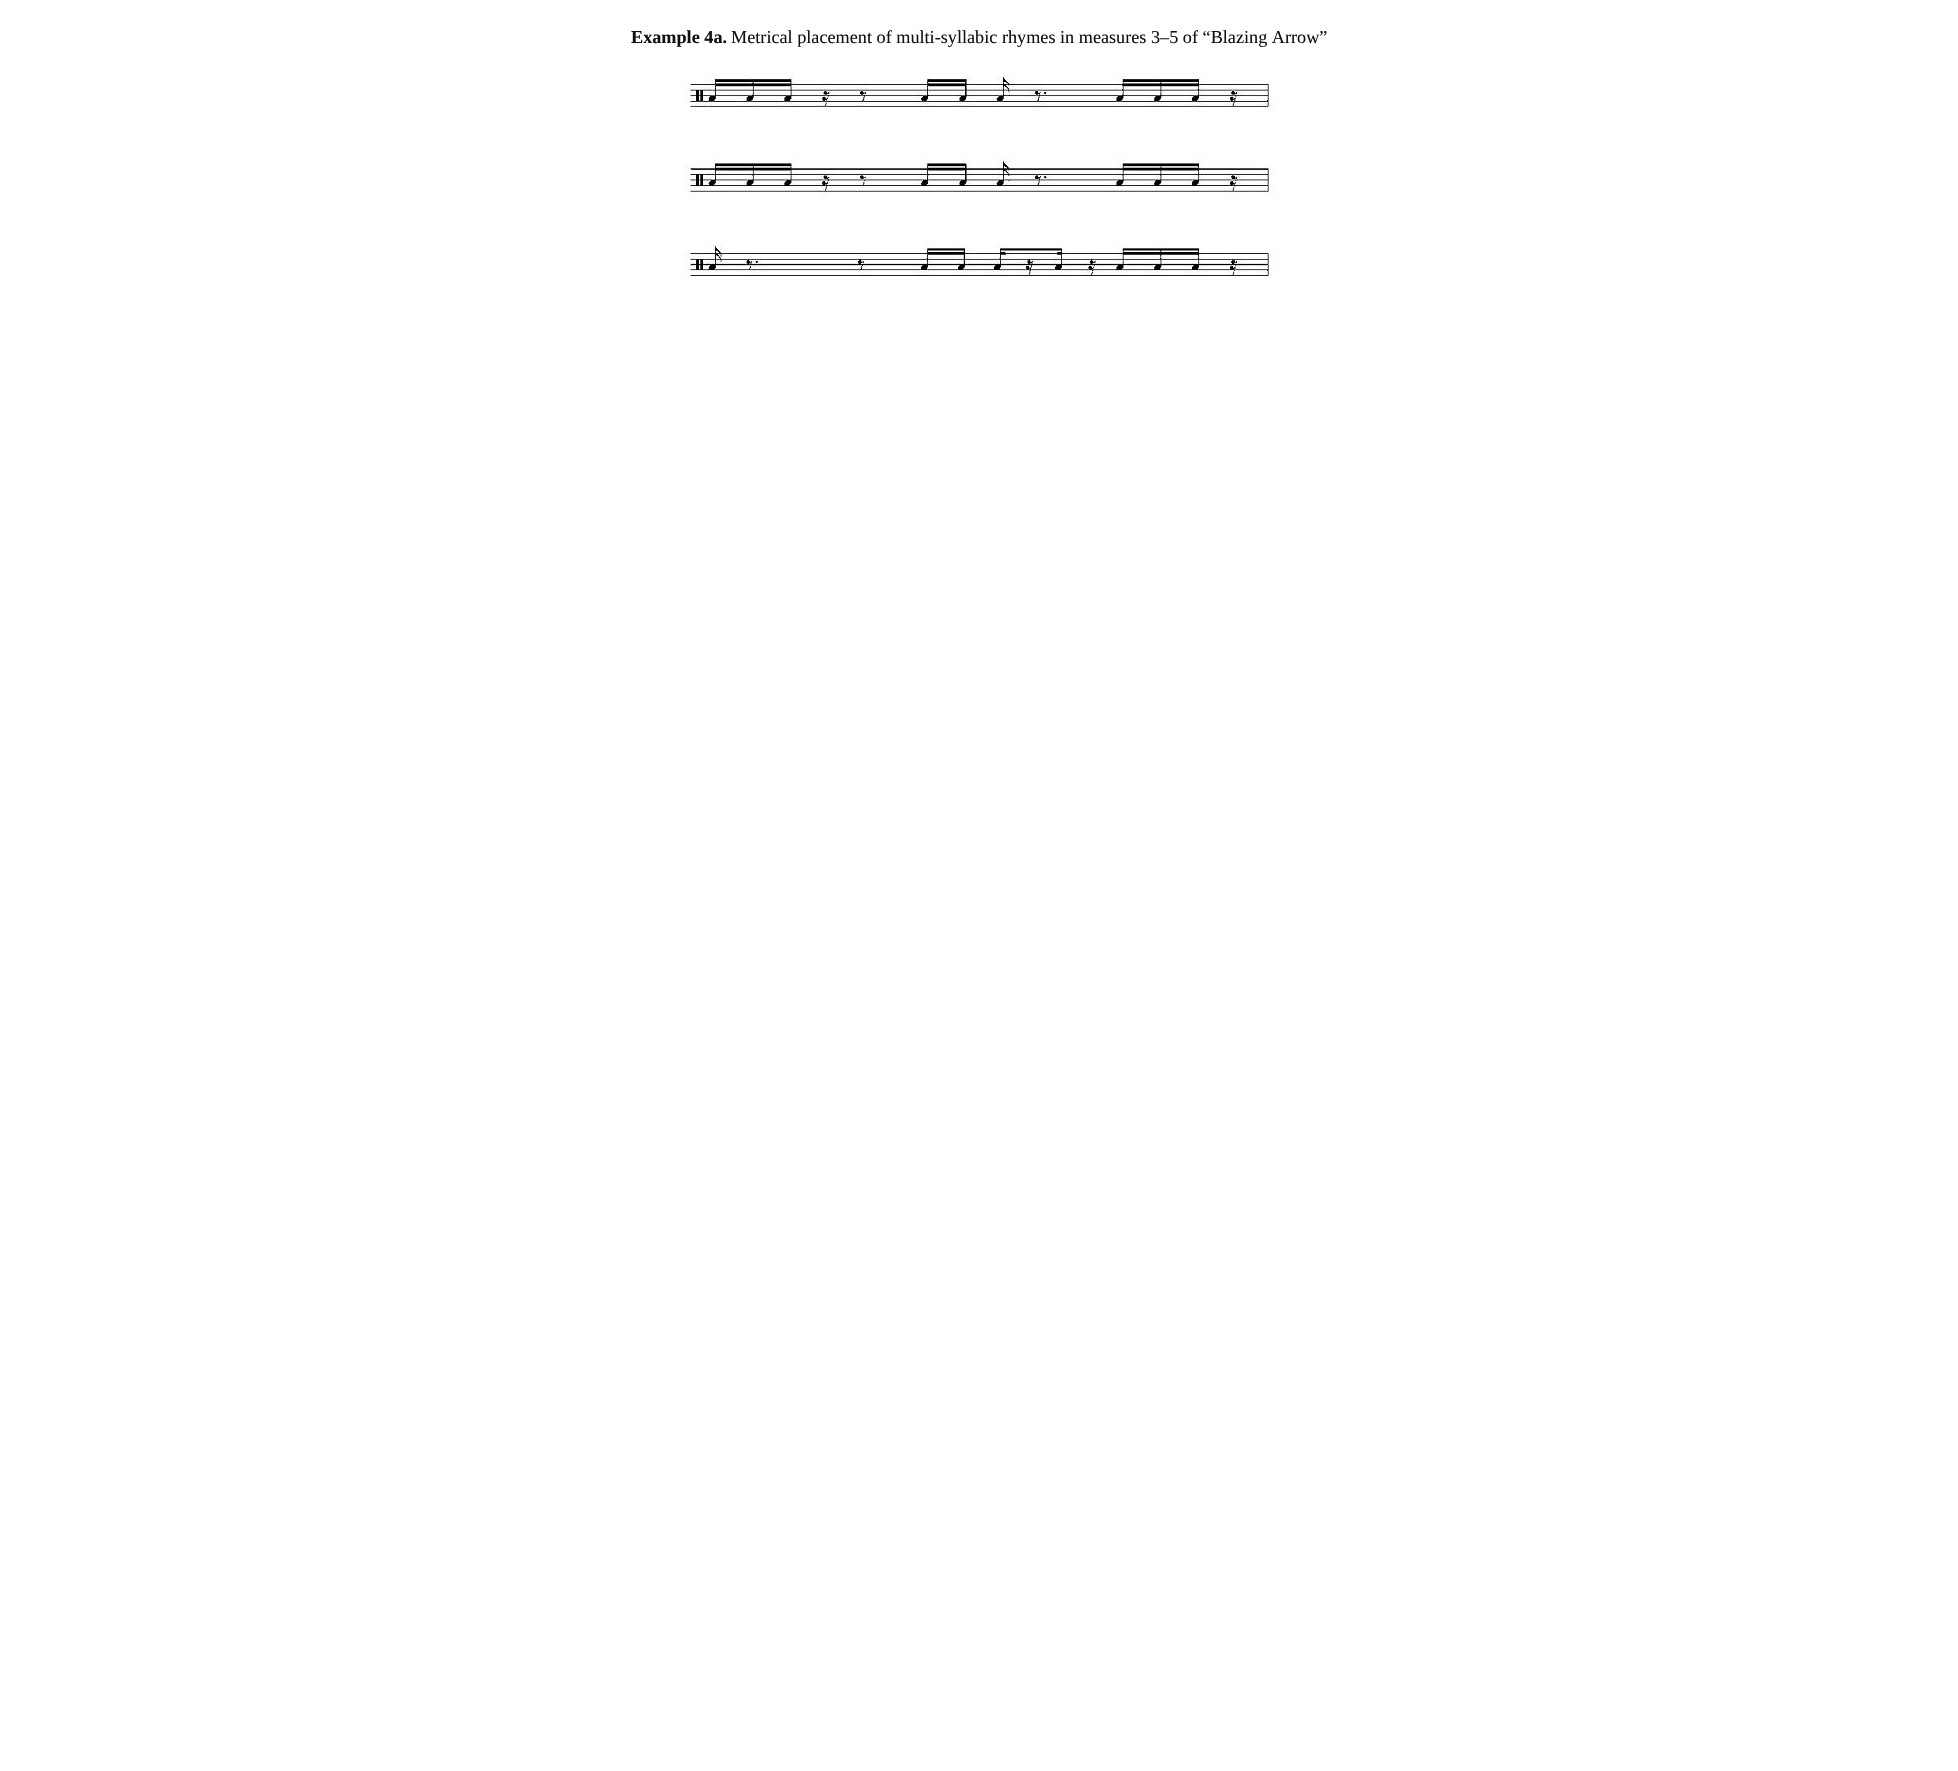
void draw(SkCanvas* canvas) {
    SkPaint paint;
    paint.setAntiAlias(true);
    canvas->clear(0xFFFFFFFF);
    SkFont font1(fontMgr->matchFamilyStyle("Liberation Serif", SkFontStyle::Bold()), 18.2f);
    font1.setSubpixel(true);
    paint.setColor(0xFF111111);
    canvas->drawString("Example 4a.", 631, 43, font1, paint);
    SkFont font2(fontMgr->matchFamilyStyle("Liberation Serif", SkFontStyle::Normal()), 18.2f);
    font2.setSubpixel(true);
    canvas->drawString("Metrical placement of multi-syllabic rhymes in measures 3–5 of “Blazing Arrow”", 731, 43, font2, paint);
    canvas->drawImageRect(SkImages::DeferredFromEncodedData(SkData::MakeFromFileName("img1.png")), SkRect::MakeXYWH(684, 76, 592, 200), SkSamplingOptions());
}
